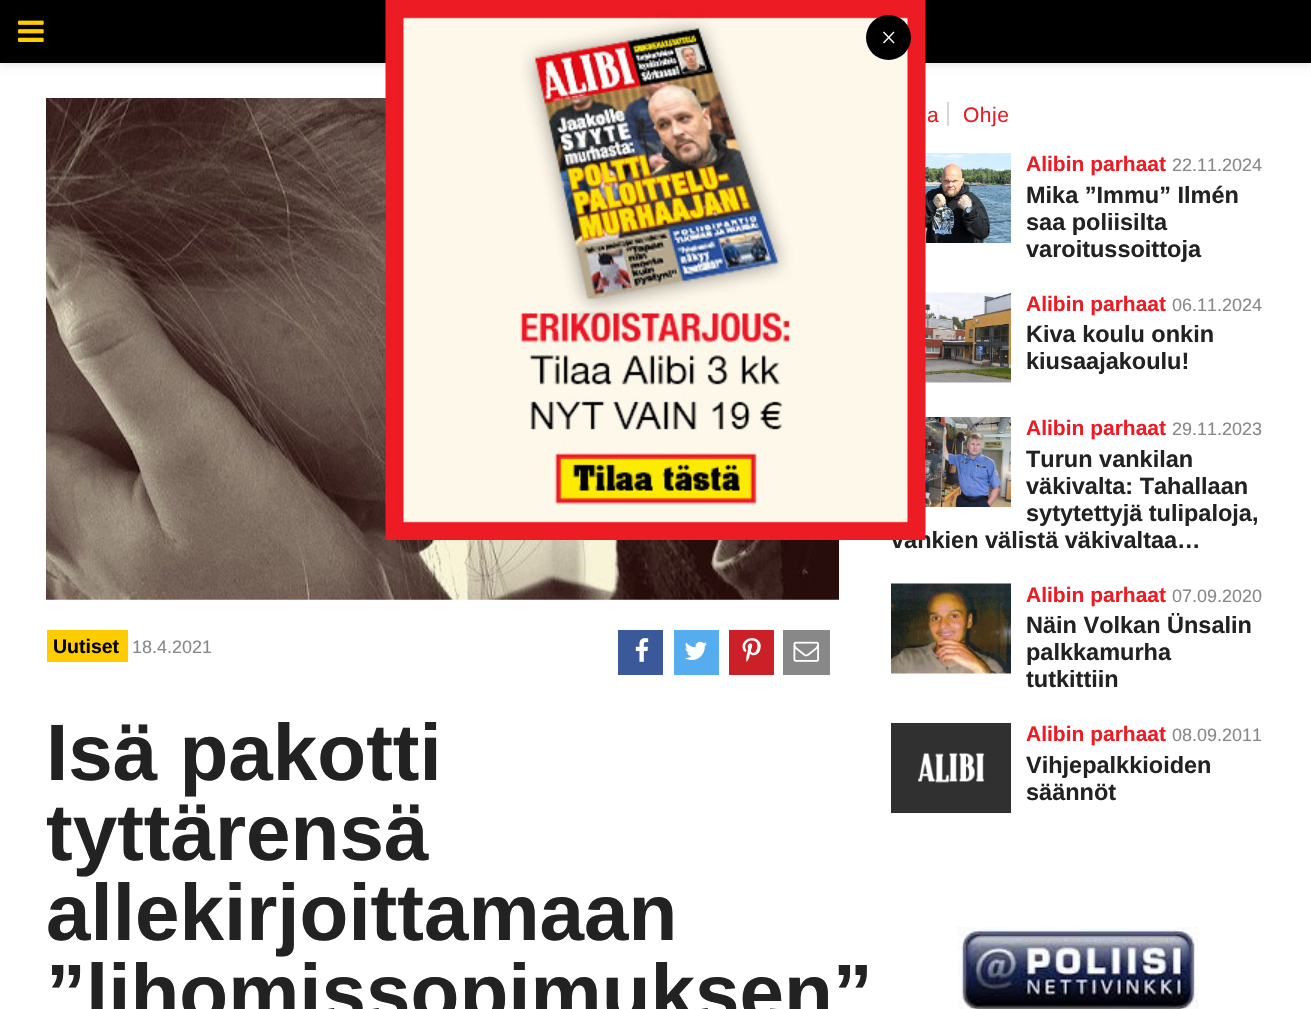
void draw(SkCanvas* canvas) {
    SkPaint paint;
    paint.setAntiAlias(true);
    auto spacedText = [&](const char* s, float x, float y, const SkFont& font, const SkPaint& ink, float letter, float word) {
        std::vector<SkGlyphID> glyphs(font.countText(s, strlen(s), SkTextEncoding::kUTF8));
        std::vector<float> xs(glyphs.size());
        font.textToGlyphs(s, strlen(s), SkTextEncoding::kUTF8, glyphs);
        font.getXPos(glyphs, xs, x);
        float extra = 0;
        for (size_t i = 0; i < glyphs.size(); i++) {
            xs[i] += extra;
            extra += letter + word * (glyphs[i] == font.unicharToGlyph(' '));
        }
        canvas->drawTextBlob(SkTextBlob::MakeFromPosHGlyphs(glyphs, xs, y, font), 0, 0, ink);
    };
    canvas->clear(0xFFFFFFFF);
    paint.setColor(0x1A000000);
    paint.setMaskFilter(SkMaskFilter::MakeBlur(kNormal_SkBlurStyle, 4));
    canvas->drawRect(SkRect::MakeXYWH(0, 2, 1311, 63), paint);
    paint.setMaskFilter(nullptr);
    paint.setColor(0xFF000000);
    canvas->drawRect(SkRect::MakeXYWH(0, 0, 1311, 63), paint);
    canvas->drawImageRect(SkImages::DeferredFromEncodedData(SkData::MakeFromFileName("img1.png")), SkRect::MakeXYWH(18, 20, 26, 22), SkSamplingOptions());
    canvas->drawImageRect(SkImages::DeferredFromEncodedData(SkData::MakeFromFileName("img2.png")), SkRect::MakeXYWH(46, 98, 793, 502), SkSamplingOptions());
    paint.setColor(0xFFFFCC00);
    canvas->drawRect(SkRect::MakeXYWH(47, 630, 81, 32), paint);
    SkFont font1(fontMgr->matchFamilyStyle("Liberation Sans", SkFontStyle::Bold()), 19.5f);
    font1.setSubpixel(true);
    paint.setColor(0xFF000000);
    canvas->drawString("Uutiset", 53, 653, font1, paint);
    SkFont font2(fontMgr->matchFamilyStyle("Liberation Sans", SkFontStyle::Normal()), 18);
    font2.setSubpixel(true);
    paint.setColor(0xFF888888);
    canvas->drawString("18.4.2021", 132, 653, font2, paint);
    paint.setColor(0xFF3B5998);
    canvas->drawRect(SkRect::MakeXYWH(618, 630, 45, 45), paint);
    canvas->drawImageRect(SkImages::DeferredFromEncodedData(SkData::MakeFromFileName("img3.png")), SkRect::MakeXYWH(635, 638, 14, 24), SkSamplingOptions());
    paint.setColor(0xFF55ACEE);
    canvas->drawRect(SkRect::MakeXYWH(674, 630, 45, 45), paint);
    canvas->drawImageRect(SkImages::DeferredFromEncodedData(SkData::MakeFromFileName("img4.png")), SkRect::MakeXYWH(685, 641, 22, 19), SkSamplingOptions());
    paint.setColor(0xFFCB2027);
    canvas->drawRect(SkRect::MakeXYWH(729, 630, 45, 45), paint);
    canvas->drawImageRect(SkImages::DeferredFromEncodedData(SkData::MakeFromFileName("img5.png")), SkRect::MakeXYWH(742, 638, 19, 24), SkSamplingOptions());
    paint.setColor(0xFF888888);
    canvas->drawRect(SkRect::MakeXYWH(783, 630, 47, 45), paint);
    canvas->drawImageRect(SkImages::DeferredFromEncodedData(SkData::MakeFromFileName("img6.png")), SkRect::MakeXYWH(793, 641, 26, 21), SkSamplingOptions());
    SkFont font3(fontMgr->matchFamilyStyle("Liberation Sans", SkFontStyle::Bold()), 80);
    font3.setSubpixel(true);
    paint.setColor(0xFF222222);
    canvas->drawString("Isä pakotti", 46, 780, font3, paint);
    canvas->drawString("tyttärensä", 46, 860, font3, paint);
    canvas->drawString("allekirjoittamaan", 46, 940, font3, paint);
    canvas->drawString("”lihomissopimuksen”", 46, 1020, font3, paint);
    canvas->drawImageRect(SkImages::DeferredFromEncodedData(SkData::MakeFromFileName("img8.png")), SkRect::MakeXYWH(925, 153, 86, 90), SkSamplingOptions());
    canvas->drawImageRect(SkImages::DeferredFromEncodedData(SkData::MakeFromFileName("img9.png")), SkRect::MakeXYWH(925, 292, 86, 91), SkSamplingOptions());
    canvas->drawImageRect(SkImages::DeferredFromEncodedData(SkData::MakeFromFileName("img10.png")), SkRect::MakeXYWH(925, 417, 86, 90), SkSamplingOptions());
    SkFont font4(fontMgr->matchFamilyStyle("Liberation Sans", SkFontStyle::Bold()), 23.5f);
    font4.setSubpixel(true);
    canvas->drawString("vankien välistä väkivaltaa…", 891, 548, font4, paint);
    canvas->drawImageRect(SkImages::DeferredFromEncodedData(SkData::MakeFromFileName("img7.png")), SkRect::MakeXYWH(385, 0, 541, 540), SkSamplingOptions());
    paint.setColor(0xFF000000);
    canvas->drawCircle(888.5f, 37.5f, 22.5f, paint);
    paint.setColor(0xFFFFFFFF);
    canvas->drawPath(SkPathBuilder().moveTo(893.5f, 31.5f).lineTo(894.5f, 32.5f).lineTo(884, 43.5f).lineTo(883, 42.5f).close().detach(), paint);
    canvas->drawPath(SkPathBuilder().moveTo(883, 32.5f).lineTo(884, 31.5f).lineTo(894.5f, 42.5f).lineTo(893.5f, 43.5f).close().detach(), paint);
    SkFont font5(fontMgr->matchFamilyStyle("Liberation Sans", SkFontStyle::Normal()), 21);
    font5.setSubpixel(true);
    paint.setColor(0xFFED1B24);
    spacedText("a", 927, 122, font5, paint, 0.5f, 0);
    paint.setColor(0xFFD5D6DA);
    canvas->drawRect(SkRect::MakeXYWH(947, 102, 2, 24), paint);
    paint.setColor(0xFFED1B24);
    spacedText("Ohje", 963, 122, font5, paint, 0.5f, 0);
    SkFont font6(fontMgr->matchFamilyStyle("Liberation Sans", SkFontStyle::Bold()), 21);
    font6.setSubpixel(true);
    canvas->drawString("Alibin parhaat", 1026, 171, font6, paint);
    paint.setColor(0xFF888888);
    canvas->drawString("22.11.2024", 1172, 171, font2, paint);
    paint.setColor(0xFF222222);
    canvas->drawString("Mika ”Immu” Ilmén", 1026, 203, font4, paint);
    canvas->drawString("saa poliisilta", 1026, 230, font4, paint);
    canvas->drawString("varoitussoittoja", 1026, 257, font4, paint);
    paint.setColor(0xFFED1B24);
    canvas->drawString("Alibin parhaat", 1026, 311, font6, paint);
    paint.setColor(0xFF888888);
    canvas->drawString("06.11.2024", 1172, 311, font2, paint);
    paint.setColor(0xFF222222);
    canvas->drawString("Kiva koulu onkin", 1026, 342, font4, paint);
    canvas->drawString("kiusaajakoulu!", 1026, 369, font4, paint);
    paint.setColor(0xFFED1B24);
    canvas->drawString("Alibin parhaat", 1026, 435, font6, paint);
    paint.setColor(0xFF888888);
    canvas->drawString("29.11.2023", 1172, 435, font2, paint);
    paint.setColor(0xFF222222);
    canvas->drawString("Turun vankilan", 1026, 467, font4, paint);
    canvas->drawString("väkivalta: Tahallaan", 1026, 494, font4, paint);
    canvas->drawString("sytytettyjä tulipaloja,", 1026, 521, font4, paint);
    canvas->drawImageRect(SkImages::DeferredFromEncodedData(SkData::MakeFromFileName("img11.png")), SkRect::MakeXYWH(891, 583, 120, 91), SkSamplingOptions());
    paint.setColor(0xFFED1B24);
    canvas->drawString("Alibin parhaat", 1026, 602, font6, paint);
    paint.setColor(0xFF888888);
    canvas->drawString("07.09.2020", 1172, 602, font2, paint);
    paint.setColor(0xFF222222);
    canvas->drawString("Näin Volkan Ünsalin", 1026, 633, font4, paint);
    canvas->drawString("palkkamurha", 1026, 660, font4, paint);
    canvas->drawString("tutkittiin", 1026, 687, font4, paint);
    canvas->drawImageRect(SkImages::DeferredFromEncodedData(SkData::MakeFromFileName("img12.png")), SkRect::MakeXYWH(891, 723, 120, 90), SkSamplingOptions());
    paint.setColor(0xFFED1B24);
    canvas->drawString("Alibin parhaat", 1026, 741, font6, paint);
    paint.setColor(0xFF888888);
    canvas->drawString("08.09.2011", 1172, 741, font2, paint);
    paint.setColor(0xFF222222);
    canvas->drawString("Vihjepalkkioiden", 1026, 773, font4, paint);
    canvas->drawString("säännöt", 1026, 800, font4, paint);
    canvas->drawImageRect(SkImages::DeferredFromEncodedData(SkData::MakeFromFileName("img13.png")), SkRect::MakeXYWH(958, 927, 241, 82), SkSamplingOptions());
}
